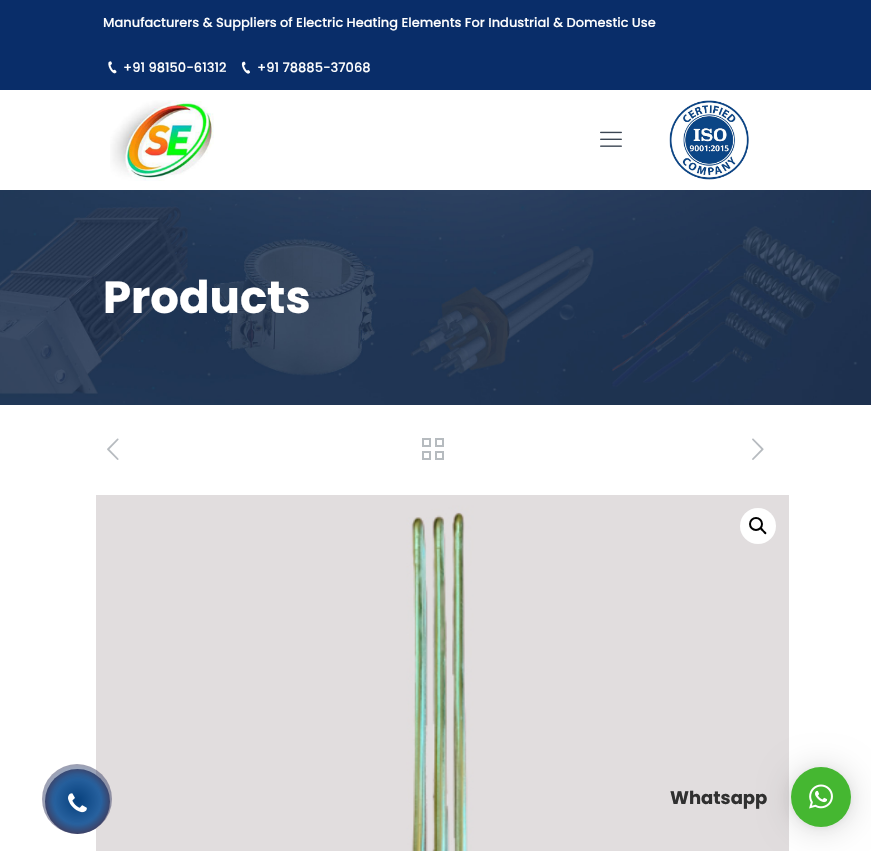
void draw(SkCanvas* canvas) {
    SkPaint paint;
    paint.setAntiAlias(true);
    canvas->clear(0xFFFFFFFF);
    paint.setColor(0xFF092D69);
    canvas->drawRect(SkRect::MakeXYWH(0, 0, 871, 90), paint);
    SkFont font1(fontMgr->matchFamilyStyle("Poppins", SkFontStyle(500, SkFontStyle::kNormal_Width, SkFontStyle::kUpright_Slant)), 13);
    font1.setSubpixel(true);
    paint.setColor(0xFFFFFFFF);
    canvas->drawString("Manufacturers & Suppliers of Electric Heating Elements For Industrial & Domestic Use", 103, 27, font1, paint);
    canvas->drawImageRect(SkImages::DeferredFromEncodedData(SkData::MakeFromFileName("img1.png")), SkRect::MakeXYWH(108, 61, 9, 13), SkSamplingOptions());
    canvas->drawString("+91 98150-61312", 123, 72, font1, paint);
    canvas->drawImageRect(SkImages::DeferredFromEncodedData(SkData::MakeFromFileName("img2.png")), SkRect::MakeXYWH(241, 61, 9, 13), SkSamplingOptions());
    canvas->drawString("+91 78885-37068", 257, 72, font1, paint);
    canvas->drawImageRect(SkImages::DeferredFromEncodedData(SkData::MakeFromFileName("img3.png")), SkRect::MakeXYWH(110, 100, 104, 81), SkSamplingOptions());
    canvas->drawImageRect(SkImages::DeferredFromEncodedData(SkData::MakeFromFileName("img4.png")), SkRect::MakeXYWH(600, 131, 22, 16), SkSamplingOptions());
    canvas->drawImageRect(SkImages::DeferredFromEncodedData(SkData::MakeFromFileName("img5.png")), SkRect::MakeXYWH(669, 100, 80, 80), SkSamplingOptions());
    canvas->drawImageRect(SkImages::DeferredFromEncodedData(SkData::MakeFromFileName("img6.png")), SkRect::MakeXYWH(0, 190, 871, 215), SkSamplingOptions());
    SkFont font2(fontMgr->matchFamilyStyle("Poppins", SkFontStyle::Bold()), 45);
    font2.setSubpixel(true);
    canvas->drawString("Products", 103, 313, font2, paint);
    canvas->drawImageRect(SkImages::DeferredFromEncodedData(SkData::MakeFromFileName("img11.png")), SkRect::MakeXYWH(96, 495, 693, 356), SkSamplingOptions());
    {
        const SkColor colors[] = {0xFF063F7C, 0xFF27619F, 0xFF5C1212};
        const float stops[] = {0, 0.5f, 1};
        paint.setShader(SkGradientShader::MakeRadial({78, 802}, 46, colors, stops, 3, SkTileMode::kClamp));
        paint.setAlpha(255);
    }
    canvas->drawCircle(77.5f, 801.5f, 32.5f, paint);
    {
        const SkColor colors[] = {0x80063F7C, 0x8027619F, 0x805C1212};
        const float stops[] = {0, 0.5f, 1};
        paint.setShader(SkGradientShader::MakeRadial({77, 799}, 49, colors, stops, 3, SkTileMode::kClamp));
        paint.setAlpha(255);
    }
    canvas->drawCircle(77, 799, 35, paint);
    canvas->drawImageRect(SkImages::DeferredFromEncodedData(SkData::MakeFromFileName("img7.png")), SkRect::MakeXYWH(68, 793, 19, 20), SkSamplingOptions());
    canvas->drawImageRect(SkImages::DeferredFromEncodedData(SkData::MakeFromFileName("img8.png")), SkRect::MakeXYWH(107, 438, 12, 22), SkSamplingOptions());
    canvas->drawImageRect(SkImages::DeferredFromEncodedData(SkData::MakeFromFileName("img9.png")), SkRect::MakeXYWH(422, 438, 22, 22), SkSamplingOptions());
    canvas->drawImageRect(SkImages::DeferredFromEncodedData(SkData::MakeFromFileName("img10.png")), SkRect::MakeXYWH(752, 438, 12, 22), SkSamplingOptions());
    paint.setShader(nullptr);
    paint.setColor(0xFFFFFFFF);
    canvas->drawCircle(758, 526, 18, paint);
    paint.setStyle(SkPaint::kStroke_Style);
    paint.setStrokeWidth(2);
    paint.setColor(0xFF000000);
    canvas->drawCircle(756, 524, 6, paint);
    paint.setStyle(SkPaint::kFill_Style);
    canvas->drawPath(SkPathBuilder().moveTo(760.5f, 528).cubicTo(761.5f, 527, 763.5f, 529.5f, 764, 530.5f).cubicTo(764.5f, 531, 767.5f, 532.5f, 766, 534).cubicTo(765, 535, 763.5f, 532.5f, 762.5f, 531.5f).cubicTo(762, 531, 759.5f, 529.5f, 760.5f, 528).close().detach(), paint);
    paint.setColor(0x29000000);
    paint.setMaskFilter(SkMaskFilter::MakeBlur(kNormal_SkBlurStyle, 16));
    canvas->drawRoundRect(SkRect::MakeXYWH(791, 769, 60, 60), 30, 30, paint);
    paint.setMaskFilter(nullptr);
    paint.setColor(0x0F000000);
    paint.setMaskFilter(SkMaskFilter::MakeBlur(kNormal_SkBlurStyle, 3));
    canvas->drawRoundRect(SkRect::MakeXYWH(791, 768, 60, 60), 30, 30, paint);
    paint.setMaskFilter(nullptr);
    paint.setColor(0xFF45B731);
    canvas->drawCircle(821, 797, 30, paint);
    SkFont font3(fontMgr->matchFamilyStyle("Poppins", SkFontStyle::Bold()), 18);
    font3.setSubpixel(true);
    paint.setColor(0xFF303030);
    canvas->drawString("Whatsapp", 670, 804, font3, paint);
    canvas->drawImageRect(SkImages::DeferredFromEncodedData(SkData::MakeFromFileName("img12.png")), SkRect::MakeXYWH(809, 784, 24, 25), SkSamplingOptions());
}
